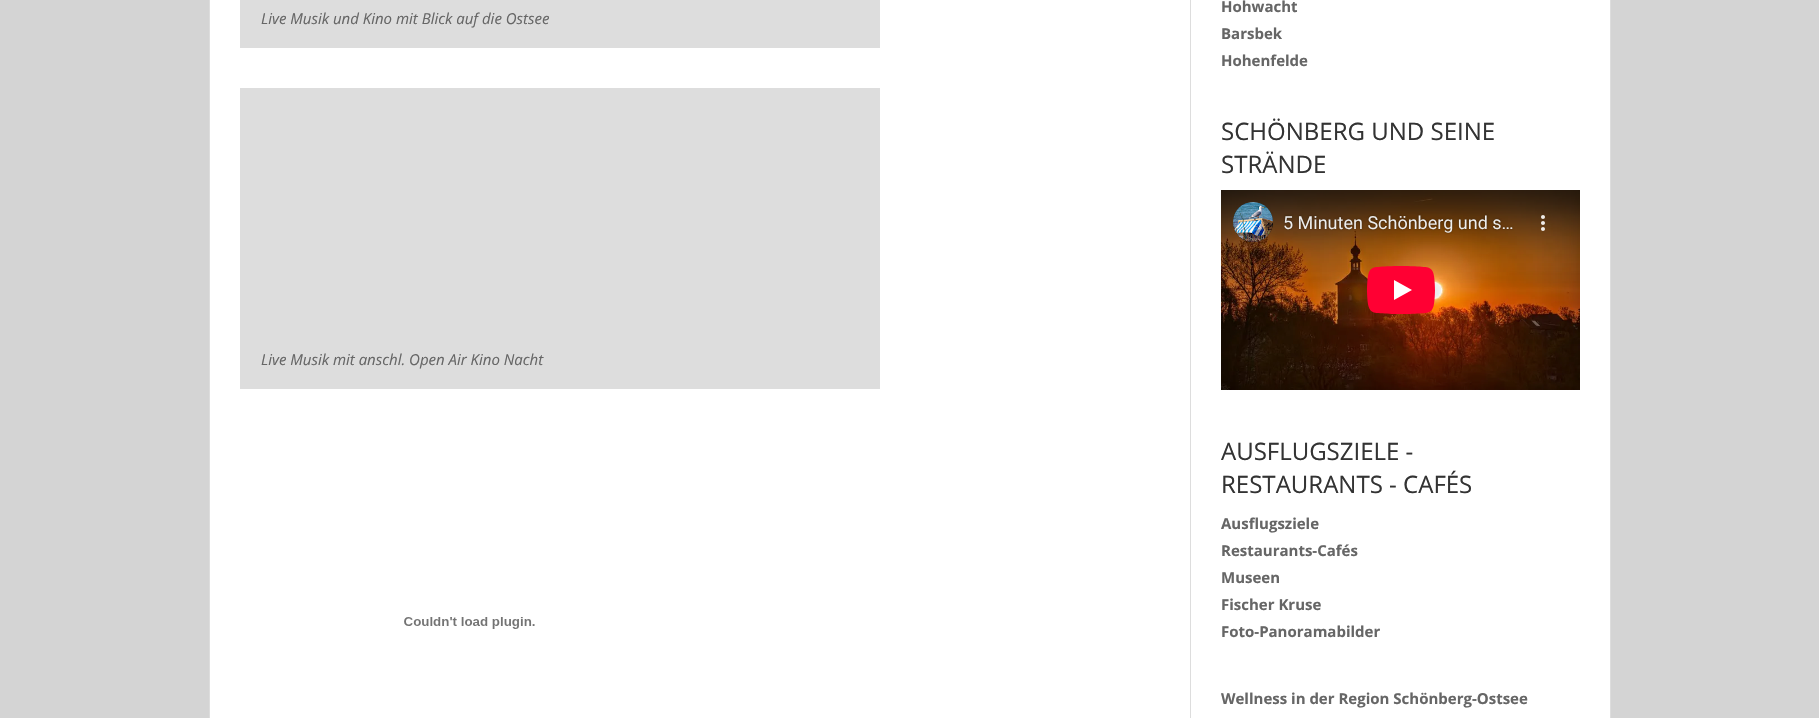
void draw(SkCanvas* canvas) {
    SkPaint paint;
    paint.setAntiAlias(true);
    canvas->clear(0xFFD4D4D4);
    paint.setColor(0xFFFFFFFF);
    canvas->drawRect(SkRect::MakeXYWH(209.5f, -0.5f, 1401, 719), paint);
    paint.setStyle(SkPaint::kStroke_Style);
    paint.setStrokeWidth(1);
    paint.setColor(0xFFDDDDDD);
    canvas->drawRect(SkRect::MakeXYWH(209.5f, -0.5f, 1401, 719), paint);
    paint.setStyle(SkPaint::kFill_Style);
    canvas->drawRect(SkRect::MakeXYWH(240, 0, 640, 48), paint);
    SkFont font1(fontMgr->matchFamilyStyle("Open Sans", SkFontStyle::Italic()), 15);
    font1.setSubpixel(true);
    paint.setColor(0xFF666666);
    canvas->drawString("Live Musik und Kino mit Blick auf die Ostsee", 261, 24, font1, paint);
    paint.setColor(0xFFDDDDDD);
    canvas->drawRect(SkRect::MakeXYWH(240, 88, 640, 301), paint);
    paint.setColor(0xFF666666);
    canvas->drawString("Live Musik mit anschl. Open Air Kino Nacht", 261, 365, font1, paint);
    canvas->drawImageRect(SkImages::DeferredFromEncodedData(SkData::MakeFromFileName("img1.png")), SkRect::MakeXYWH(404, 617, 131, 12), SkSamplingOptions());
    paint.setColor(0xFFDDDDDD);
    canvas->drawRect(SkRect::MakeXYWH(1190, 0, 1, 718), paint);
    SkFont font2(fontMgr->matchFamilyStyle("Open Sans", SkFontStyle::Bold()), 15);
    font2.setSubpixel(true);
    paint.setColor(0xFF666666);
    canvas->drawString("Hohwacht", 1221, 12, font2, paint);
    canvas->drawString("Barsbek", 1221, 39, font2, paint);
    canvas->drawString("Hohenfelde", 1221, 66, font2, paint);
    SkFont font3(fontMgr->matchFamilyStyle("Open Sans", SkFontStyle::Normal()), 24);
    font3.setSubpixel(true);
    paint.setColor(0xFF333333);
    canvas->drawString("SCHÖNBERG UND SEINE", 1221, 140, font3, paint);
    canvas->drawString("STRÄNDE", 1221, 173, font3, paint);
    canvas->drawImageRect(SkImages::DeferredFromEncodedData(SkData::MakeFromFileName("img2.png")), SkRect::MakeXYWH(1221, 190, 359, 200), SkSamplingOptions());
    canvas->drawString("AUSFLUGSZIELE -", 1221, 460, font3, paint);
    canvas->drawString("RESTAURANTS - CAFÉS", 1221, 493, font3, paint);
    paint.setColor(0xFF666666);
    canvas->drawString("Ausflugsziele", 1221, 529, font2, paint);
    canvas->drawString("Restaurants-Cafés", 1221, 556, font2, paint);
    canvas->drawString("Museen", 1221, 583, font2, paint);
    canvas->drawString("Fischer Kruse", 1221, 610, font2, paint);
    canvas->drawString("Foto-Panoramabilder", 1221, 637, font2, paint);
    canvas->drawString("Wellness in der Region Schönberg-Ostsee", 1221, 704, font2, paint);
}
